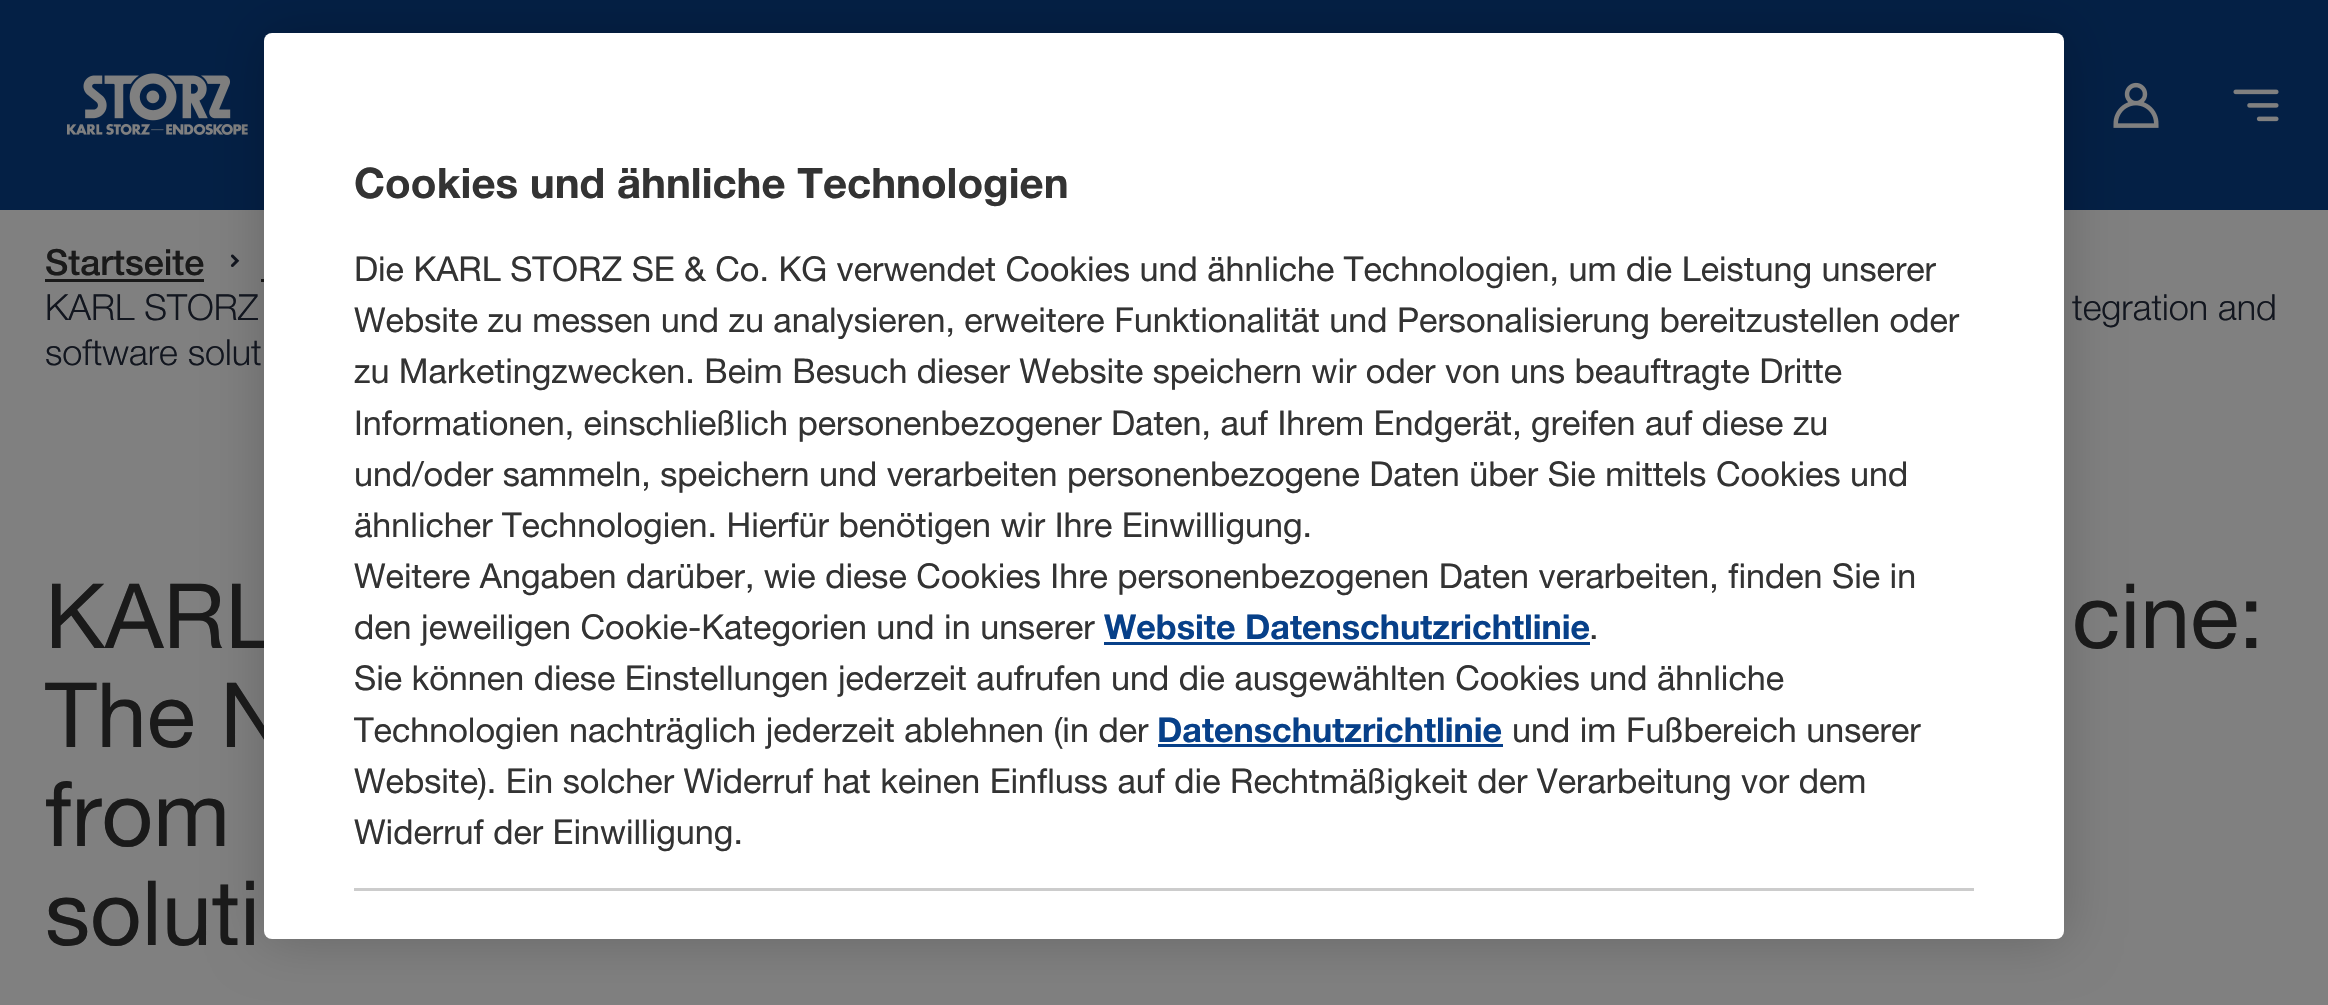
void draw(SkCanvas* canvas) {
    SkPaint paint;
    paint.setAntiAlias(true);
    canvas->clear(0xFF808080);
    paint.setColor(0xFF042045);
    canvas->drawRect(SkRect::MakeXYWH(0, 0, 2328, 210), paint);
    canvas->drawImageRect(SkImages::DeferredFromEncodedData(SkData::MakeFromFileName("img1.png")), SkRect::MakeXYWH(67, 73, 181, 62), SkSamplingOptions());
    canvas->drawImageRect(SkImages::DeferredFromEncodedData(SkData::MakeFromFileName("img2.png")), SkRect::MakeXYWH(2113, 82, 46, 46), SkSamplingOptions());
    canvas->drawImageRect(SkImages::DeferredFromEncodedData(SkData::MakeFromFileName("img3.png")), SkRect::MakeXYWH(2233, 89, 46, 33), SkSamplingOptions());
    paint.setColor(0xFF1A1A1A);
    canvas->drawRect(SkRect::MakeXYWH(45, 279, 159, 3), paint);
    canvas->drawImageRect(SkImages::DeferredFromEncodedData(SkData::MakeFromFileName("img4.png")), SkRect::MakeXYWH(230, 254, 10, 13), SkSamplingOptions());
    canvas->drawRect(SkRect::MakeXYWH(261, 279, 3, 3), paint);
    paint.setColor(0x33000000);
    paint.setMaskFilter(SkMaskFilter::MakeBlur(kNormal_SkBlurStyle, 27));
    canvas->drawRoundRect(SkRect::MakeXYWH(264, 33, 1800, 906), 8, 8, paint);
    paint.setMaskFilter(nullptr);
    SkFont font1(fontMgr->matchFamilyStyle("Helvetica", SkFontStyle::Normal()), 90);
    font1.setSubpixel(true);
    paint.setColor(0xFF1A1A1A);
    canvas->drawString("KARL", 45, 648, font1, paint);
    canvas->drawString("The N", 45, 747, font1, paint);
    paint.setColor(0xFFFFFFFF);
    canvas->drawRoundRect(SkRect::MakeXYWH(264, 33, 1800, 906), 8, 8, paint);
    SkFont font2(fontMgr->matchFamilyStyle("Helvetica", SkFontStyle::Bold()), 42);
    font2.setSubpixel(true);
    paint.setColor(0xFF333333);
    canvas->drawString("Cookies und ähnliche Technologien", 354, 198, font2, paint);
    SkFont font3(fontMgr->matchFamilyStyle("Helvetica", SkFontStyle::Normal()), 34.15f);
    font3.setSubpixel(true);
    canvas->drawString("Die KARL STORZ SE & Co. KG verwendet Cookies und ähnliche Technologien, um die Leistung unserer", 354, 281, font3, paint);
    canvas->drawString("Website zu messen und zu analysieren, erweitere Funktionalität und Personalisierung bereitzustellen oder", 354, 332, font3, paint);
    canvas->drawString("zu Marketingzwecken. Beim Besuch dieser Website speichern wir oder von uns beauftragte Dritte", 354, 383, font3, paint);
    canvas->drawString("Informationen, einschließlich personenbezogener Daten, auf Ihrem Endgerät, greifen auf diese zu", 354, 435, font3, paint);
    canvas->drawString("und/oder sammeln, speichern und verarbeiten personenbezogene Daten über Sie mittels Cookies und", 354, 486, font3, paint);
    canvas->drawString("ähnlicher Technologien. Hierfür benötigen wir Ihre Einwilligung.", 354, 537, font3, paint);
    canvas->drawString("Weitere Angaben darüber, wie diese Cookies Ihre personenbezogenen Daten verarbeiten, finden Sie in", 354, 588, font3, paint);
    canvas->drawString("den jeweiligen Cookie-Kategorien und in unserer", 354, 639, font3, paint);
    SkFont font4(fontMgr->matchFamilyStyle("Helvetica", SkFontStyle::Bold()), 34.15f);
    font4.setSubpixel(true);
    paint.setColor(0xFF074089);
    canvas->drawString("Website Datenschutzrichtlinie", 1104, 639, font4, paint);
    canvas->drawRect(SkRect::MakeXYWH(1104, 642, 486, 3), paint);
    paint.setColor(0xFF333333);
    canvas->drawString(".", 1589, 639, font3, paint);
    canvas->drawString("Sie können diese Einstellungen jederzeit aufrufen und die ausgewählten Cookies und ähnliche", 354, 690, font3, paint);
    canvas->drawString("Technologien nachträglich jederzeit ablehnen (in der", 354, 742, font3, paint);
    paint.setColor(0xFF074089);
    canvas->drawString("Datenschutzrichtlinie", 1157, 742, font4, paint);
    canvas->drawRect(SkRect::MakeXYWH(1158, 744, 345, 3), paint);
    paint.setColor(0xFF333333);
    canvas->drawString("und im Fußbereich unserer", 1512, 742, font3, paint);
    canvas->drawString("Website). Ein solcher Widerruf hat keinen Einfluss auf die Rechtmäßigkeit der Verarbeitung vor dem", 354, 793, font3, paint);
    canvas->drawString("Widerruf der Einwilligung.", 354, 844, font3, paint);
    paint.setColor(0xFFCCCCCC);
    canvas->drawRect(SkRect::MakeXYWH(354, 888, 1620, 3), paint);
    SkFont font5(fontMgr->matchFamilyStyle("Helvetica", SkFontStyle(500, SkFontStyle::kNormal_Width, SkFontStyle::kUpright_Slant)), 36);
    font5.setSubpixel(true);
    paint.setColor(0xFF1A1A1A);
    canvas->drawString("Startseite", 45, 275, font5, paint);
    SkFont font6(fontMgr->matchFamilyStyle("Helvetica", SkFontStyle(300, SkFontStyle::kNormal_Width, SkFontStyle::kUpright_Slant)), 36);
    font6.setSubpixel(true);
    paint.setColor(0xFF12161F);
    canvas->drawString("KARL STORZ", 45, 320, font6, paint);
    canvas->drawString("tegration and", 2072, 320, font6, paint);
    canvas->drawString("software solut", 45, 365, font6, paint);
    paint.setColor(0xFF1A1A1A);
    canvas->drawString("cine:", 2072, 648, font1, paint);
    canvas->drawString("from", 45, 846, font1, paint);
    canvas->drawString("soluti", 45, 945, font1, paint);
}
